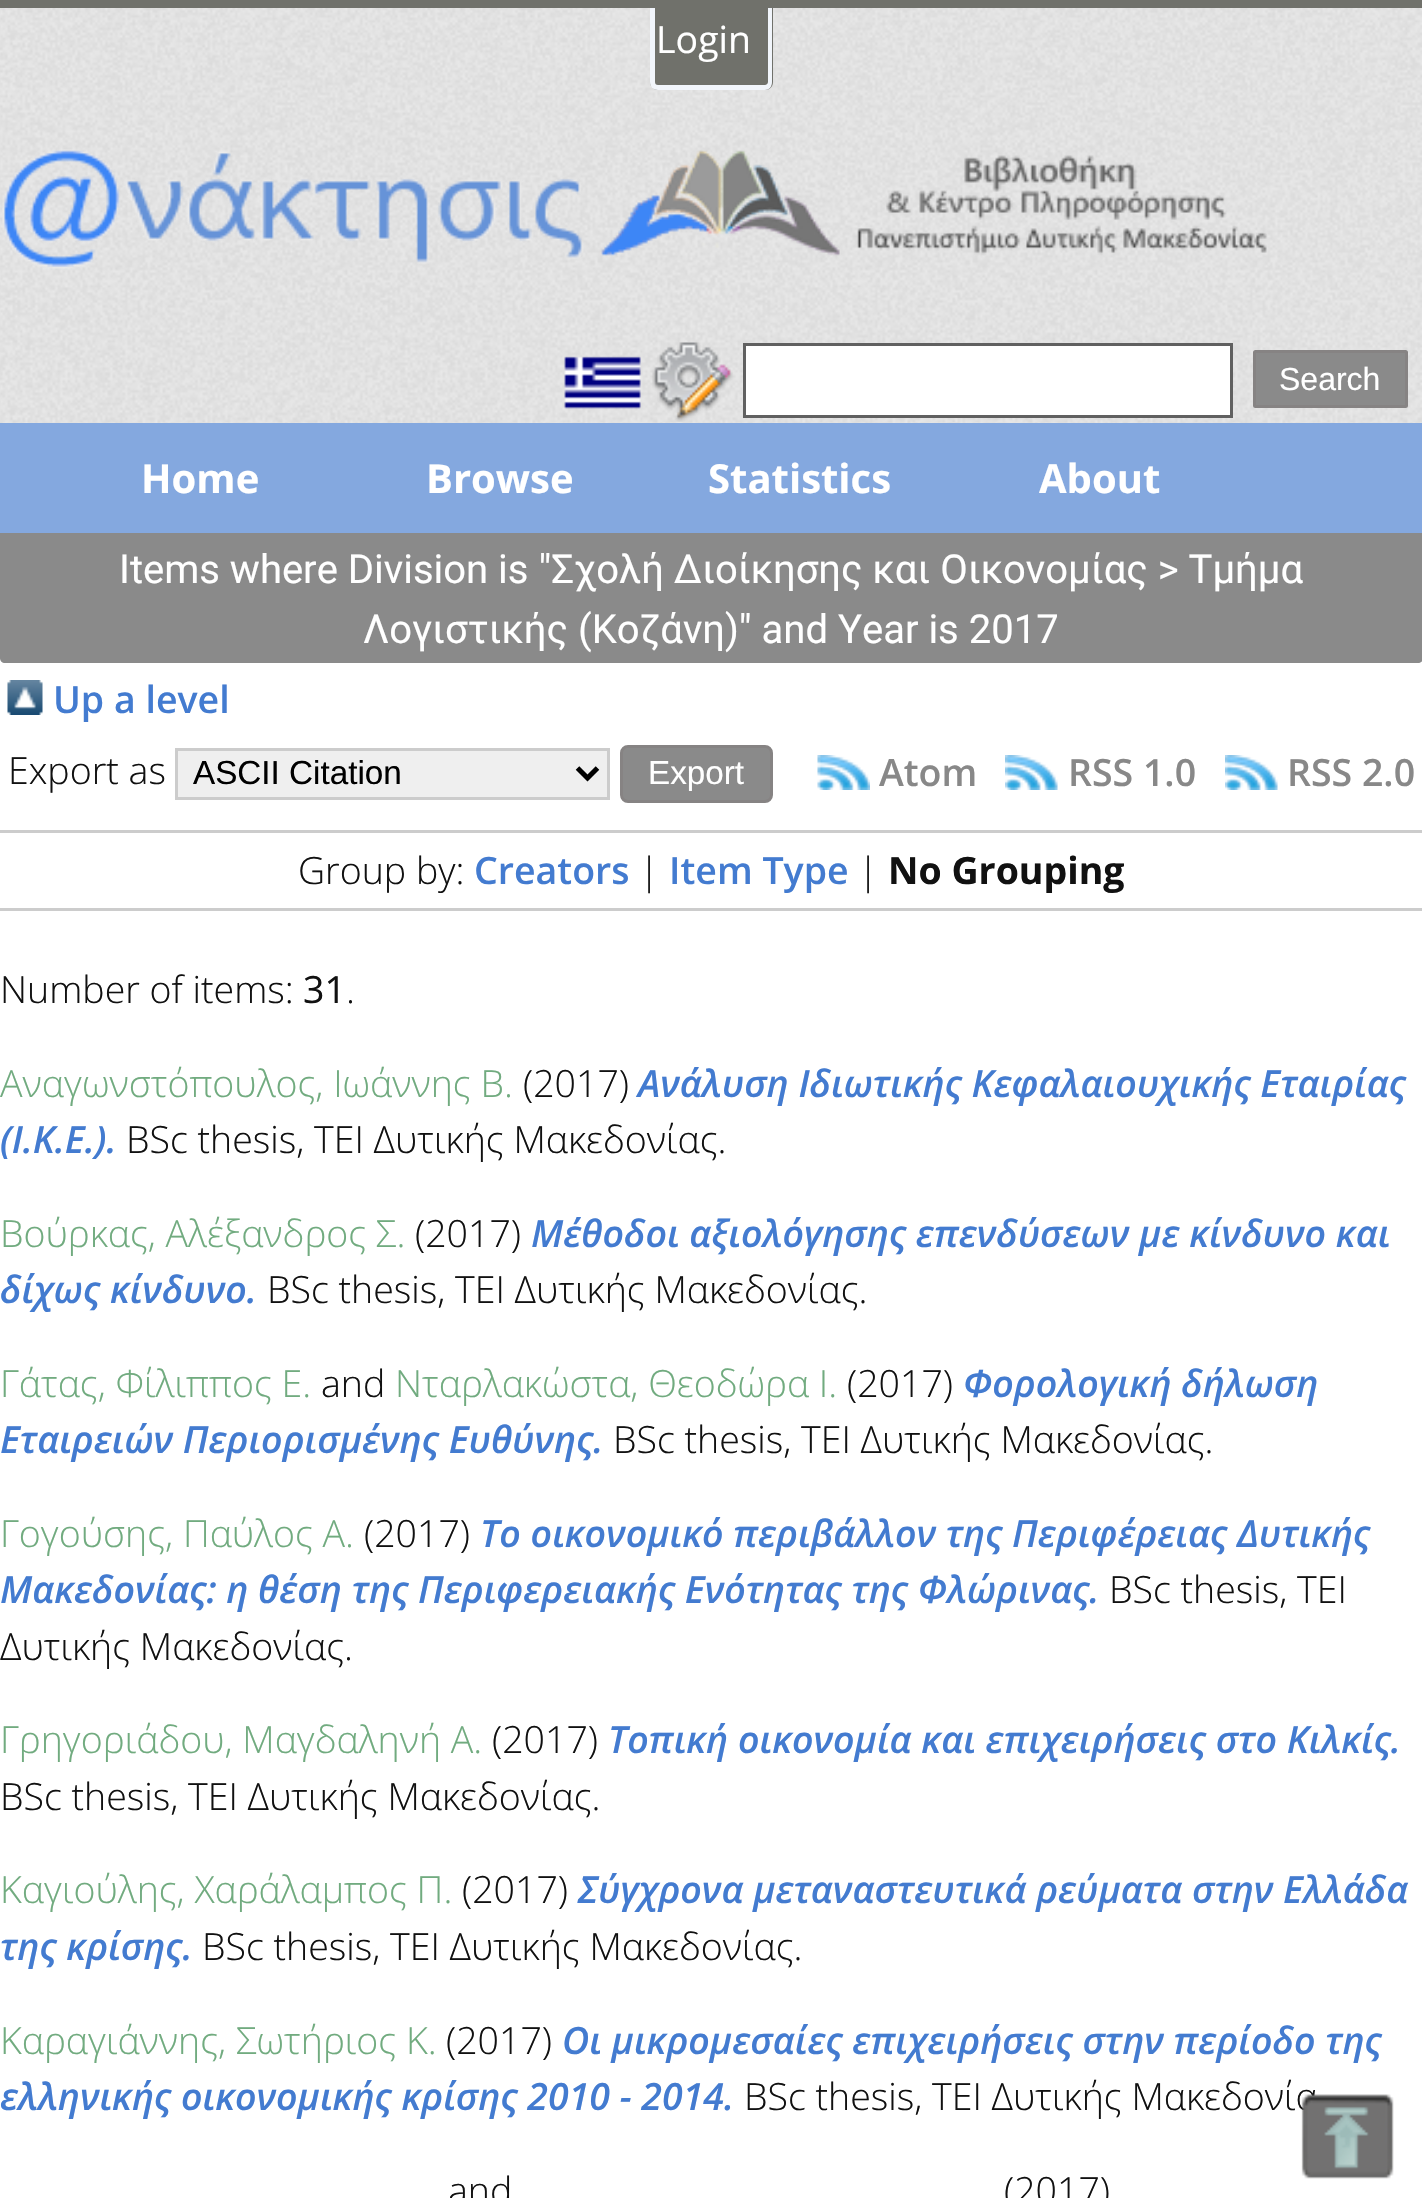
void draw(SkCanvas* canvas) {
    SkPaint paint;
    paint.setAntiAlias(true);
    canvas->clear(0xFFFFFFFF);
    canvas->drawImageRect(SkImages::DeferredFromEncodedData(SkData::MakeFromFileName("img1.png")), SkRect::MakeXYWH(0, 8, 1422, 415), SkSamplingOptions());
    paint.setColor(0xFF70716B);
    canvas->drawRect(SkRect::MakeXYWH(0, 0, 1422, 8), paint);
    canvas->drawPath(SkPathBuilder().moveTo(650, 8).lineTo(773, 8).lineTo(773, 82).cubicTo(773, 86.5f, 769.5f, 90, 765, 90).lineTo(658, 90).cubicTo(653.5f, 90, 650, 86.5f, 650, 82).close().detach(), paint);
    paint.setColor(0xFFF1F5FB);
    canvas->drawPath(SkPathBuilder(SkPathFillType::kEvenOdd).moveTo(650, 8).lineTo(772, 8).lineTo(772, 82).cubicTo(772, 87, 769, 90, 765, 90).lineTo(658, 90).cubicTo(653, 90, 650, 87, 650, 82).close().moveTo(655, 8).lineTo(768, 8).lineTo(768, 82).cubicTo(768, 84, 766, 85, 765, 85).lineTo(658, 85).cubicTo(656, 85, 655, 84, 655, 82).close().detach(), paint);
    SkFont font1(fontMgr->matchFamilyStyle("Open Sans", SkFontStyle::Normal()), 37.5f);
    font1.setSubpixel(true);
    paint.setColor(0xFFFFFFFF);
    canvas->drawString("Login", 656, 53, font1, paint);
    canvas->drawImageRect(SkImages::DeferredFromEncodedData(SkData::MakeFromFileName("img2.png")), SkRect::MakeXYWH(2, 149, 1265, 120), SkSamplingOptions());
    canvas->drawImageRect(SkImages::DeferredFromEncodedData(SkData::MakeFromFileName("img3.png")), SkRect::MakeXYWH(564, 356, 77, 53), SkSamplingOptions());
    canvas->drawImageRect(SkImages::DeferredFromEncodedData(SkData::MakeFromFileName("img4.png")), SkRect::MakeXYWH(652, 342, 81, 80), SkSamplingOptions());
    canvas->drawRect(SkRect::MakeXYWH(744.5f, 344.5f, 487, 72), paint);
    paint.setStyle(SkPaint::kStroke_Style);
    paint.setStrokeWidth(3);
    paint.setColor(0xFF606060);
    canvas->drawRect(SkRect::MakeXYWH(744.5f, 344.5f, 487, 72), paint);
    paint.setStyle(SkPaint::kFill_Style);
    paint.setColor(0xFF8A8A8A);
    canvas->drawRoundRect(SkRect::MakeXYWH(1254.5f, 351.5f, 152, 55), 1, 1, paint);
    paint.setStyle(SkPaint::kStroke_Style);
    paint.setColor(0xFF868383);
    canvas->drawRoundRect(SkRect::MakeXYWH(1254.5f, 351.5f, 152, 55), 1, 1, paint);
    SkFont font2(fontMgr->matchFamilyStyle("Liberation Sans", SkFontStyle::Normal()), 32);
    font2.setSubpixel(true);
    paint.setStyle(SkPaint::kFill_Style);
    paint.setColor(0xFFFFFFFF);
    canvas->drawString("Search", 1279, 390, font2, paint);
    paint.setColor(0xFF84A8DF);
    canvas->drawRect(SkRect::MakeXYWH(0, 423, 1422, 110), paint);
    paint.setColor(0xFF8A8A8A);
    canvas->drawRect(SkRect::MakeXYWH(0, 533, 1422, 7), paint);
    SkFont font3(fontMgr->matchFamilyStyle("Open Sans", SkFontStyle::Bold()), 40);
    font3.setSubpixel(true);
    paint.setColor(0xFFFFFFFF);
    canvas->drawString("Home", 141, 493, font3, paint);
    canvas->drawString("Browse", 426, 493, font3, paint);
    canvas->drawString("Statistics", 708, 493, font3, paint);
    canvas->drawString("About", 1039, 493, font3, paint);
    paint.setColor(0xFF8A8A8A);
    canvas->drawPath(SkPathBuilder().moveTo(0, 540).lineTo(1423, 540).lineTo(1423, 658).cubicTo(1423, 661, 1421, 663, 1418, 663).lineTo(5, 663).cubicTo(2, 663, 0, 661, 0, 658).close().detach(), paint);
    SkFont font4(fontMgr->matchFamilyStyle("Roboto", SkFontStyle::Normal()), 40);
    font4.setSubpixel(true);
    paint.setColor(0xFFFFFFFF);
    canvas->drawString("Items where Division is \"Σχολή Διοίκησης και Οικονομίας > Τμήμα", 119, 583, font4, paint);
    canvas->drawString("Λογιστικής (Κοζάνη)\" and Year is 2017", 363, 643, font4, paint);
    canvas->drawImageRect(SkImages::DeferredFromEncodedData(SkData::MakeFromFileName("img5.png")), SkRect::MakeXYWH(7, 680, 36, 35), SkSamplingOptions());
    SkFont font5(fontMgr->matchFamilyStyle("Open Sans", SkFontStyle(600, SkFontStyle::kNormal_Width, SkFontStyle::kUpright_Slant)), 37.5f);
    font5.setSubpixel(true);
    paint.setColor(0xFF437BD0);
    canvas->drawString("Up a level", 53, 713, font5, paint);
    SkFont font6(fontMgr->matchFamilyStyle("Open Sans", SkFontStyle(300, SkFontStyle::kNormal_Width, SkFontStyle::kUpright_Slant)), 37.5f);
    font6.setSubpixel(true);
    paint.setColor(0xFF111111);
    canvas->drawString("Export as", 8, 784, font6, paint);
    paint.setColor(0xFFEFEFEF);
    canvas->drawRect(SkRect::MakeXYWH(176.5f, 749.5f, 432, 49), paint);
    paint.setStyle(SkPaint::kStroke_Style);
    paint.setColor(0xFFCCCCCC);
    canvas->drawRect(SkRect::MakeXYWH(176.5f, 749.5f, 432, 49), paint);
    paint.setStrokeWidth(5);
    paint.setColor(0xFF000000);
    canvas->drawPath(SkPathBuilder().moveTo(577.5f, 768).lineTo(587.5f, 778).lineTo(597.5f, 768).detach(), paint);
    SkFont font7(fontMgr->matchFamilyStyle("Liberation Sans", SkFontStyle::Normal()), 33.25f);
    font7.setSubpixel(true);
    paint.setStyle(SkPaint::kFill_Style);
    canvas->drawString("ASCII Citation", 193, 784, font7, paint);
    paint.setColor(0xFF8A8A8A);
    canvas->drawRoundRect(SkRect::MakeXYWH(621.5f, 746.5f, 150, 55), 6.5f, 6.5f, paint);
    paint.setStyle(SkPaint::kStroke_Style);
    paint.setStrokeWidth(3);
    paint.setColor(0xFF868383);
    canvas->drawRoundRect(SkRect::MakeXYWH(621.5f, 746.5f, 150, 55), 6.5f, 6.5f, paint);
    paint.setStyle(SkPaint::kFill_Style);
    paint.setColor(0xFFFFFFFF);
    canvas->drawString("Export", 648, 784, font7, paint);
    canvas->drawImageRect(SkImages::DeferredFromEncodedData(SkData::MakeFromFileName("img6.png")), SkRect::MakeXYWH(817, 755, 53, 35), SkSamplingOptions());
    paint.setColor(0xFF888888);
    canvas->drawString("Atom", 879, 786, font5, paint);
    canvas->drawImageRect(SkImages::DeferredFromEncodedData(SkData::MakeFromFileName("img7.png")), SkRect::MakeXYWH(1005, 755, 53, 35), SkSamplingOptions());
    canvas->drawString("RSS 1.0", 1068, 786, font5, paint);
    canvas->drawImageRect(SkImages::DeferredFromEncodedData(SkData::MakeFromFileName("img8.png")), SkRect::MakeXYWH(1225, 755, 53, 35), SkSamplingOptions());
    canvas->drawString("RSS 2.0", 1287, 786, font5, paint);
    paint.setColor(0xFFCCCCCC);
    canvas->drawRect(SkRect::MakeXYWH(0, 830, 1422, 3), paint);
    canvas->drawRect(SkRect::MakeXYWH(0, 908, 1422, 3), paint);
    paint.setColor(0xFF111111);
    canvas->drawString("Group by:", 298, 884, font6, paint);
    paint.setColor(0xFF437BD0);
    canvas->drawString("Creators", 474, 884, font5, paint);
    paint.setColor(0xFF111111);
    canvas->drawString("|", 639, 884, font6, paint);
    paint.setColor(0xFF437BD0);
    canvas->drawString("Item Type", 669, 884, font5, paint);
    paint.setColor(0xFF111111);
    canvas->drawString("|", 858, 884, font6, paint);
    SkFont font8(fontMgr->matchFamilyStyle("Open Sans", SkFontStyle::Bold()), 37.5f);
    font8.setSubpixel(true);
    canvas->drawString("No Grouping", 888, 884, font8, paint);
    canvas->drawString("Number of items:", 0, 1003, font6, paint);
    canvas->drawString("31", 303, 1003, font1, paint);
    canvas->drawString(".", 346, 1003, font6, paint);
    paint.setColor(0xFF71AB7F);
    canvas->drawString("Αναγωνστόπουλος, Ιωάννης Β.", 0, 1097, font6, paint);
    paint.setColor(0xFF111111);
    canvas->drawString("(2017)", 523, 1097, font6, paint);
    SkFont font9(fontMgr->matchFamilyStyle("Open Sans", SkFontStyle(600, SkFontStyle::kNormal_Width, SkFontStyle::kItalic_Slant)), 37.5f);
    font9.setSubpixel(true);
    paint.setColor(0xFF437BD0);
    canvas->drawString("Ανάλυση Ιδιωτικής Κεφαλαιουχικής Εταιρίας", 638, 1097, font9, paint);
    canvas->drawString("(Ι.Κ.Ε.).", 0, 1153, font9, paint);
    paint.setColor(0xFF111111);
    canvas->drawString("BSc thesis, ΤΕΙ Δυτικής Μακεδονίας.", 126, 1153, font6, paint);
    paint.setColor(0xFF71AB7F);
    canvas->drawString("Βούρκας, Αλέξανδρος Σ.", 0, 1247, font6, paint);
    paint.setColor(0xFF111111);
    canvas->drawString("(2017)", 415, 1247, font6, paint);
    paint.setColor(0xFF437BD0);
    canvas->drawString("Μέθοδοι αξιολόγησης επενδύσεων με κίνδυνο και", 531, 1247, font9, paint);
    canvas->drawString("δίχως κίνδυνο.", 0, 1303, font9, paint);
    paint.setColor(0xFF111111);
    canvas->drawString("BSc thesis, ΤΕΙ Δυτικής Μακεδονίας.", 267, 1303, font6, paint);
    paint.setColor(0xFF71AB7F);
    canvas->drawString("Γάτας, Φίλιππος Ε.", 0, 1397, font6, paint);
    paint.setColor(0xFF111111);
    canvas->drawString("and", 321, 1397, font6, paint);
    paint.setColor(0xFF71AB7F);
    canvas->drawString("Νταρλακώστα, Θεοδώρα Ι.", 395, 1397, font6, paint);
    paint.setColor(0xFF111111);
    canvas->drawString("(2017)", 847, 1397, font6, paint);
    paint.setColor(0xFF437BD0);
    canvas->drawString("Φορολογική δήλωση", 963, 1397, font9, paint);
    canvas->drawString("Εταιρειών Περιορισμένης Ευθύνης.", 0, 1453, font9, paint);
    paint.setColor(0xFF111111);
    canvas->drawString("BSc thesis, ΤΕΙ Δυτικής Μακεδονίας.", 613, 1453, font6, paint);
    paint.setColor(0xFF71AB7F);
    canvas->drawString("Γογούσης, Παύλος Α.", 0, 1547, font6, paint);
    paint.setColor(0xFF111111);
    canvas->drawString("(2017)", 364, 1547, font6, paint);
    paint.setColor(0xFF437BD0);
    canvas->drawString("Το οικονομικό περιβάλλον της Περιφέρειας Δυτικής", 480, 1547, font9, paint);
    canvas->drawString("Μακεδονίας: η θέση της Περιφερειακής Ενότητας της Φλώρινας.", 0, 1603, font9, paint);
    paint.setColor(0xFF111111);
    canvas->drawString("BSc thesis, ΤΕΙ", 1109, 1603, font6, paint);
    canvas->drawString("Δυτικής Μακεδονίας.", 0, 1660, font6, paint);
    paint.setColor(0xFF71AB7F);
    canvas->drawString("Γρηγοριάδου, Μαγδαληνή Α.", 0, 1753, font6, paint);
    paint.setColor(0xFF111111);
    canvas->drawString("(2017)", 492, 1753, font6, paint);
    paint.setColor(0xFF437BD0);
    canvas->drawString("Τοπική οικονομία και επιχειρήσεις στο Κιλκίς.", 608, 1753, font9, paint);
    paint.setColor(0xFF111111);
    canvas->drawString("BSc thesis, ΤΕΙ Δυτικής Μακεδονίας.", 0, 1810, font6, paint);
    paint.setColor(0xFF71AB7F);
    canvas->drawString("Καγιούλης, Χαράλαμπος Π.", 0, 1903, font6, paint);
    paint.setColor(0xFF111111);
    canvas->drawString("(2017)", 462, 1903, font6, paint);
    paint.setColor(0xFF437BD0);
    canvas->drawString("Σύγχρονα μεταναστευτικά ρεύματα στην Ελλάδα", 578, 1903, font9, paint);
    canvas->drawString("της κρίσης.", 0, 1960, font9, paint);
    paint.setColor(0xFF111111);
    canvas->drawString("BSc thesis, ΤΕΙ Δυτικής Μακεδονίας.", 202, 1960, font6, paint);
    paint.setColor(0xFF71AB7F);
    canvas->drawString("Καραγιάννης, Σωτήριος Κ.", 0, 2054, font6, paint);
    paint.setColor(0xFF111111);
    canvas->drawString("(2017)", 446, 2054, font6, paint);
    paint.setColor(0xFF437BD0);
    canvas->drawString("Οι μικρομεσαίες επιχειρήσεις στην περίοδο της", 562, 2054, font9, paint);
    canvas->drawString("ελληνικής οικονομικής κρίσης 2010 - 2014.", 0, 2110, font9, paint);
    paint.setColor(0xFF111111);
    canvas->drawString("BSc thesis, ΤΕΙ Δυτικής Μακεδονία", 744, 2110, font6, paint);
    canvas->drawString("and", 448, 2204, font6, paint);
    canvas->drawString("(2017)", 1004, 2204, font6, paint);
    canvas->drawImageRect(SkImages::DeferredFromEncodedData(SkData::MakeFromFileName("img9.png")), SkRect::MakeXYWH(1301, 2094, 93, 85), SkSamplingOptions());
}
